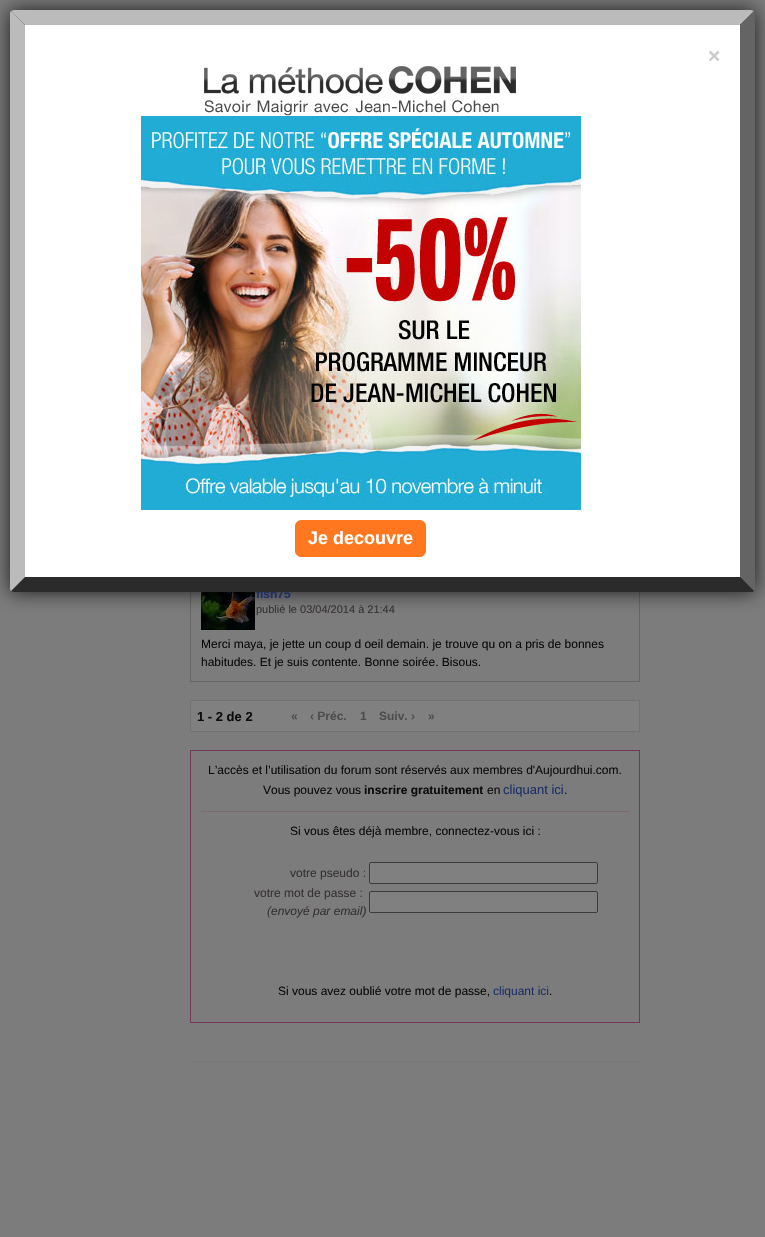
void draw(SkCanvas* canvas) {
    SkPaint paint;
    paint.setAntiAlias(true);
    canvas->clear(0xFF7C7C7C);
    paint.setStyle(SkPaint::kStroke_Style);
    paint.setStrokeWidth(1);
    paint.setColor(0xFF666666);
    canvas->drawRect(SkRect::MakeXYWH(190.5f, 574.5f, 449, 107), paint);
    canvas->drawImageRect(SkImages::DeferredFromEncodedData(SkData::MakeFromFileName("img3.png")), SkRect::MakeXYWH(201, 592, 54, 38), SkSamplingOptions());
    paint.setStyle(SkPaint::kFill_Style);
    paint.setColor(0xCC000000);
    paint.setMaskFilter(SkMaskFilter::MakeBlur(kNormal_SkBlurStyle, 10));
    canvas->drawRoundRect(SkRect::MakeXYWH(10, 10, 745, 582), 4, 4, paint);
    paint.setMaskFilter(nullptr);
    paint.setColor(0xFFFFFFFF);
    canvas->drawRect(SkRect::MakeXYWH(25, 25, 715, 552), paint);
    paint.setColor(0xFFBBBBBB);
    canvas->drawPath(SkPathBuilder().moveTo(14, 10).lineTo(11, 11).lineTo(25, 25).lineTo(740, 25).lineTo(754, 11).lineTo(751, 10).close().detach(), paint);
    paint.setColor(0xFF646464);
    canvas->drawPath(SkPathBuilder().moveTo(755, 588).lineTo(755, 14).lineTo(754, 11).lineTo(740, 25).lineTo(740, 577).lineTo(754, 591).close().detach(), paint);
    SkFont font1(fontMgr->matchFamilyStyle("Liberation Sans", SkFontStyle::Bold()), 12);
    font1.setSubpixel(true);
    paint.setColor(0xFF1B3067);
    canvas->drawString("fish75", 256, 598, font1, paint);
    paint.setColor(0xFF2B2B2B);
    canvas->drawPath(SkPathBuilder().moveTo(14, 592).lineTo(751, 592).cubicTo(752, 592, 753, 592, 754, 591).lineTo(740, 577).lineTo(25, 577).lineTo(11, 591).close().detach(), paint);
    paint.setColor(0xFFBBBBBB);
    canvas->drawPath(SkPathBuilder().moveTo(25, 25).lineTo(11, 11).cubicTo(10, 12, 10, 13, 10, 14).lineTo(10, 588).cubicTo(10, 589, 10, 590, 11, 591).lineTo(25, 577).close().detach(), paint);
    SkFont font2(fontMgr->matchFamilyStyle("Liberation Sans", SkFontStyle::Bold()), 21);
    font2.setSubpixel(true);
    paint.setColor(0xFFCCCCCC);
    canvas->drawString("×", 708, 63, font2, paint);
    canvas->drawImageRect(SkImages::DeferredFromEncodedData(SkData::MakeFromFileName("img1.png")), SkRect::MakeXYWH(204, 66, 312, 50), SkSamplingOptions());
    canvas->drawImageRect(SkImages::DeferredFromEncodedData(SkData::MakeFromFileName("img2.png")), SkRect::MakeXYWH(141, 116, 440, 394), SkSamplingOptions());
    paint.setColor(0xFFFF771F);
    canvas->drawRoundRect(SkRect::MakeXYWH(295.5f, 520.5f, 130, 36), 5.5f, 5.5f, paint);
    paint.setStyle(SkPaint::kStroke_Style);
    canvas->drawRoundRect(SkRect::MakeXYWH(295.5f, 520.5f, 130, 36), 5.5f, 5.5f, paint);
    SkFont font3(fontMgr->matchFamilyStyle("Liberation Sans", SkFontStyle::Bold()), 18);
    font3.setSubpixel(true);
    paint.setStyle(SkPaint::kFill_Style);
    paint.setColor(0xFFFFFFFF);
    canvas->drawString("Je decouvre", 308, 544, font3, paint);
    SkFont font4(fontMgr->matchFamilyStyle("Liberation Sans", SkFontStyle::Normal()), 11);
    font4.setSubpixel(true);
    paint.setColor(0xFF363231);
    canvas->drawString("publié le 03/04/2014 à 21:44", 256, 613, font4, paint);
    SkFont font5(fontMgr->matchFamilyStyle("Liberation Sans", SkFontStyle::Normal()), 12);
    font5.setSubpixel(true);
    paint.setColor(0xFF0B0B0B);
    canvas->drawString("Merci maya, je jette un coup d oeil demain. je trouve qu on a pris de bonnes", 201, 648, font5, paint);
    canvas->drawString("habitudes. Et je suis contente. Bonne soirée. Bisous.", 201, 666, font5, paint);
    paint.setColor(0xFF808080);
    canvas->drawRect(SkRect::MakeXYWH(190.5f, 700.5f, 449, 31), paint);
    paint.setStyle(SkPaint::kStroke_Style);
    paint.setColor(0xFF727272);
    canvas->drawRect(SkRect::MakeXYWH(190.5f, 700.5f, 449, 31), paint);
    SkFont font6(fontMgr->matchFamilyStyle("Liberation Sans", SkFontStyle::Bold()), 13);
    font6.setSubpixel(true);
    paint.setStyle(SkPaint::kFill_Style);
    paint.setColor(0xFF0B0B0B);
    canvas->drawString("1 - 2 de 2", 197, 721, font6, paint);
    paint.setColor(0xFF4D4D4D);
    canvas->drawString("«", 291, 720, font1, paint);
    canvas->drawString("‹ Préc.", 310, 720, font1, paint);
    canvas->drawString("1", 360, 720, font1, paint);
    canvas->drawString("Suiv. ›", 379, 720, font1, paint);
    canvas->drawString("»", 428, 720, font1, paint);
    paint.setStyle(SkPaint::kStroke_Style);
    paint.setColor(0xFF753753);
    canvas->drawRect(SkRect::MakeXYWH(190.5f, 750.5f, 449, 272), paint);
    paint.setStyle(SkPaint::kFill_Style);
    paint.setColor(0xFF7D6873);
    canvas->drawRect(SkRect::MakeXYWH(201, 811, 428, 1), paint);
    paint.setColor(0xFF0B0B0B);
    canvas->drawString("L’accès et l’utilisation du forum sont réservés aux membres d'Aujourdhui.com.", 208, 774, font5, paint);
    canvas->drawString("Vous pouvez vous", 263, 794, font5, paint);
    canvas->drawString("inscrire gratuitement", 364, 794, font1, paint);
    canvas->drawString("en", 487, 794, font5, paint);
    SkFont font7(fontMgr->matchFamilyStyle("Liberation Sans", SkFontStyle::Normal()), 13);
    font7.setSubpixel(true);
    paint.setColor(0xFF1B3067);
    canvas->drawString("cliquant ici", 503, 794, font7, paint);
    paint.setColor(0xFF0B0B0B);
    canvas->drawString(".", 564, 794, font5, paint);
    canvas->drawString("Si vous êtes déjà membre, connectez-vous ici :", 290, 835, font5, paint);
    paint.setColor(0xFF363231);
    canvas->drawString("votre pseudo :", 290, 877, font5, paint);
    paint.setColor(0xFF808080);
    canvas->drawRoundRect(SkRect::MakeXYWH(369.5f, 862.5f, 228, 21), 1.5f, 1.5f, paint);
    paint.setStyle(SkPaint::kStroke_Style);
    paint.setColor(0xFF3B3B3B);
    canvas->drawRoundRect(SkRect::MakeXYWH(369.5f, 862.5f, 228, 21), 1.5f, 1.5f, paint);
    paint.setStyle(SkPaint::kFill_Style);
    paint.setColor(0xFF363231);
    canvas->drawString("votre mot de passe :", 254, 897, font5, paint);
    SkFont font8(fontMgr->matchFamilyStyle("Liberation Sans", SkFontStyle::Italic()), 12);
    font8.setSubpixel(true);
    canvas->drawString("(envoyé par email)", 267, 915, font8, paint);
    paint.setColor(0xFF808080);
    canvas->drawRoundRect(SkRect::MakeXYWH(369.5f, 891.5f, 228, 21), 1.5f, 1.5f, paint);
    paint.setStyle(SkPaint::kStroke_Style);
    paint.setColor(0xFF3B3B3B);
    canvas->drawRoundRect(SkRect::MakeXYWH(369.5f, 891.5f, 228, 21), 1.5f, 1.5f, paint);
    paint.setStyle(SkPaint::kFill_Style);
    paint.setColor(0xFF0B0B0B);
    canvas->drawString("Si vous avez oublié votre mot de passe,", 278, 995, font5, paint);
    paint.setColor(0xFF1B3067);
    canvas->drawString("cliquant ici", 493, 995, font5, paint);
    paint.setColor(0xFF0B0B0B);
    canvas->drawString(".", 549, 995, font5, paint);
    paint.setColor(0xFF777777);
    canvas->drawRect(SkRect::MakeXYWH(190, 1061, 450, 1), paint);
}
